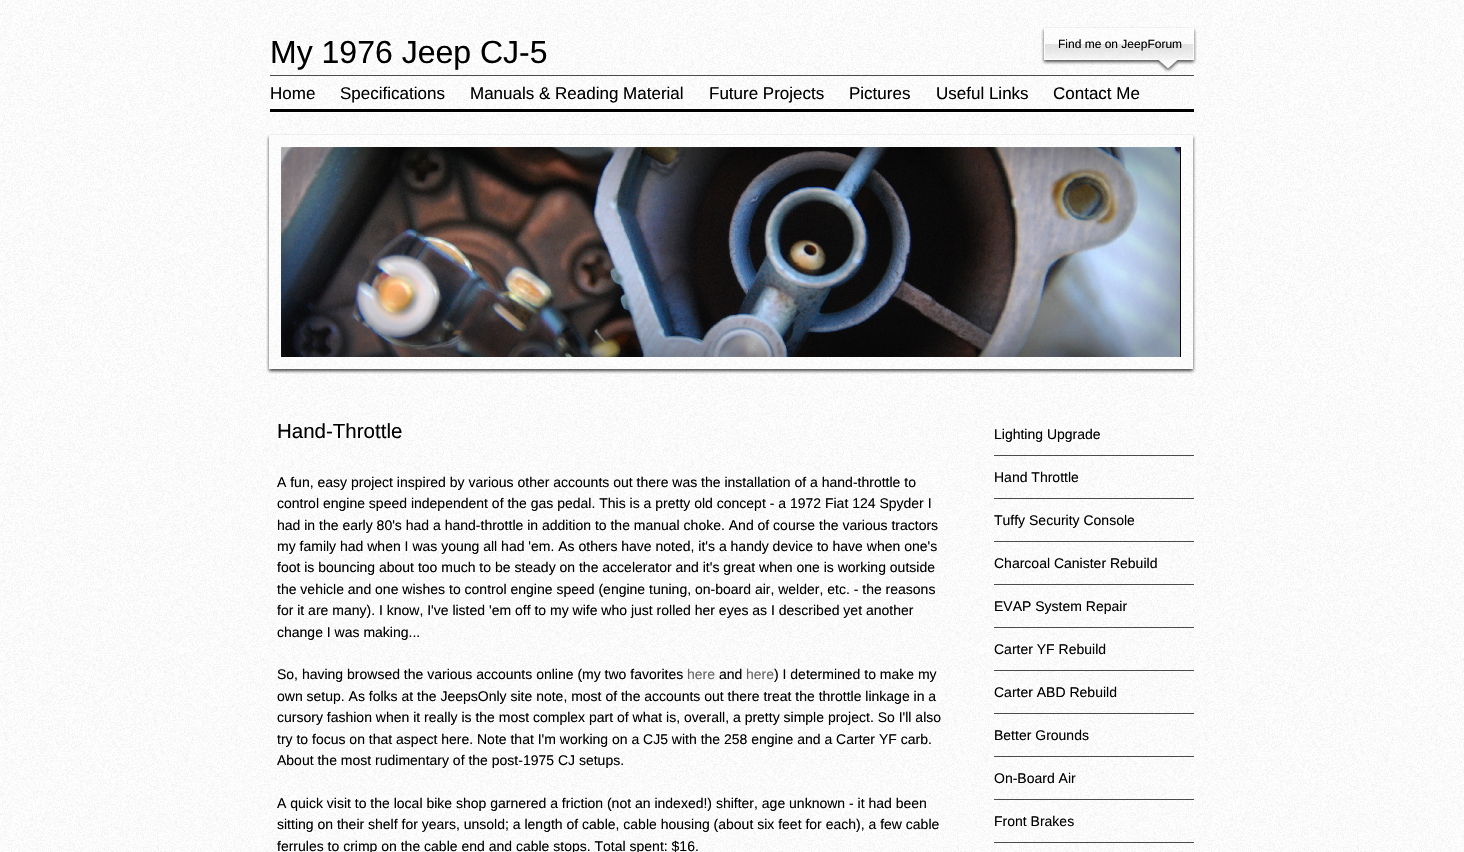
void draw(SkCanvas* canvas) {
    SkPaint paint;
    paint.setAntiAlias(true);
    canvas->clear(0xFFFFFFFF);
    canvas->drawImageRect(SkImages::DeferredFromEncodedData(SkData::MakeFromFileName("img1.png")), SkRect::MakeXYWH(0, 0, 1464, 852), SkSamplingOptions());
    paint.setColor(0xFFFFFFFF);
    canvas->drawRect(SkRect::MakeXYWH(270, 112, 924, 1), paint);
    SkFont font1(fontMgr->matchFamilyStyle("Liberation Sans", SkFontStyle::Normal()), 32);
    font1.setSubpixel(true);
    paint.setColor(0xFF000000);
    canvas->drawString("My 1976 Jeep CJ-5", 270, 63, font1, paint);
    canvas->drawImageRect(SkImages::DeferredFromEncodedData(SkData::MakeFromFileName("img2.png")), SkRect::MakeXYWH(1051, 27, 146, 46), SkSamplingOptions());
    canvas->drawImageRect(SkImages::DeferredFromEncodedData(SkData::MakeFromFileName("img3.png")), SkRect::MakeXYWH(1041, 27, 10, 38), SkSamplingOptions());
    SkFont font2(fontMgr->matchFamilyStyle("Liberation Sans", SkFontStyle::Normal()), 12);
    font2.setSubpixel(true);
    canvas->drawString("Find me on JeepForum", 1058, 48, font2, paint);
    paint.setColor(0xB3000000);
    canvas->drawRect(SkRect::MakeXYWH(270, 75, 924, 1), paint);
    paint.setColor(0xFF000000);
    canvas->drawRect(SkRect::MakeXYWH(270, 109, 924, 3), paint);
    SkFont font3(fontMgr->matchFamilyStyle("Liberation Sans", SkFontStyle::Normal()), 17);
    font3.setSubpixel(true);
    canvas->drawString("Home", 270, 99, font3, paint);
    canvas->drawString("Specifications", 340, 99, font3, paint);
    canvas->drawString("Manuals & Reading Material", 470, 99, font3, paint);
    canvas->drawString("Future Projects", 709, 99, font3, paint);
    canvas->drawString("Pictures", 849, 99, font3, paint);
    canvas->drawString("Useful Links", 936, 99, font3, paint);
    canvas->drawString("Contact Me", 1053, 99, font3, paint);
    canvas->drawImageRect(SkImages::DeferredFromEncodedData(SkData::MakeFromFileName("img4.png")), SkRect::MakeXYWH(277, 134, 919, 240), SkSamplingOptions());
    canvas->drawImageRect(SkImages::DeferredFromEncodedData(SkData::MakeFromFileName("img5.png")), SkRect::MakeXYWH(266, 134, 11, 240), SkSamplingOptions());
    canvas->drawRect(SkRect::MakeXYWH(1180, 147, 1, 210), paint);
    canvas->drawImageRect(SkImages::DeferredFromEncodedData(SkData::MakeFromFileName("img6.png")), SkRect::MakeXYWH(281, 147, 899, 210), SkSamplingOptions());
    canvas->drawImageRect(SkImages::DeferredFromEncodedData(SkData::MakeFromFileName("img7.png")), SkRect::MakeXYWH(281, 147, 899, 210), SkSamplingOptions());
    SkFont font4(fontMgr->matchFamilyStyle("Liberation Sans", SkFontStyle::Normal()), 20.5f);
    font4.setSubpixel(true);
    canvas->drawString("Hand-Throttle", 277, 438, font4, paint);
    SkFont font5(fontMgr->matchFamilyStyle("Liberation Sans", SkFontStyle::Normal()), 14);
    font5.setSubpixel(true);
    canvas->drawString("A fun, easy project inspired by various other accounts out there was the installation of a hand-throttle to", 277, 487, font5, paint);
    canvas->drawString("control engine speed independent of the gas pedal. This is a pretty old concept - a 1972 Fiat 124 Spyder I", 277, 508, font5, paint);
    canvas->drawString("had in the early 80's had a hand-throttle in addition to the manual choke. And of course the various tractors", 277, 530, font5, paint);
    canvas->drawString("my family had when I was young all had 'em. As others have noted, it's a handy device to have when one's", 277, 551, font5, paint);
    canvas->drawString("foot is bouncing about too much to be steady on the accelerator and it's great when one is working outside", 277, 572, font5, paint);
    canvas->drawString("the vehicle and one wishes to control engine speed (engine tuning, on-board air, welder, etc. - the reasons", 277, 594, font5, paint);
    canvas->drawString("for it are many). I know, I've listed 'em off to my wife who just rolled her eyes as I described yet another", 277, 615, font5, paint);
    canvas->drawString("change I was making...", 277, 637, font5, paint);
    canvas->drawString("So, having browsed the various accounts online (my two favorites", 277, 679, font5, paint);
    paint.setColor(0xFF666666);
    canvas->drawString("here", 687, 679, font5, paint);
    paint.setColor(0xFF000000);
    canvas->drawString("and", 719, 679, font5, paint);
    paint.setColor(0xFF666666);
    canvas->drawString("here", 746, 679, font5, paint);
    paint.setColor(0xFF000000);
    canvas->drawString(") I determined to make my", 774, 679, font5, paint);
    canvas->drawString("own setup. As folks at the JeepsOnly site note, most of the accounts out there treat the throttle linkage in a", 277, 701, font5, paint);
    canvas->drawString("cursory fashion when it really is the most complex part of what is, overall, a pretty simple project. So I'll also", 277, 722, font5, paint);
    canvas->drawString("try to focus on that aspect here. Note that I'm working on a CJ5 with the 258 engine and a Carter YF carb.", 277, 744, font5, paint);
    canvas->drawString("About the most rudimentary of the post-1975 CJ setups.", 277, 765, font5, paint);
    canvas->drawString("A quick visit to the local bike shop garnered a friction (not an indexed!) shifter, age unknown - it had been", 277, 808, font5, paint);
    canvas->drawString("sitting on their shelf for years, unsold; a length of cable, cable housing (about six feet for each), a few cable", 277, 829, font5, paint);
    canvas->drawString("ferrules to crimp on the cable end and cable stops. Total spent: $16.", 277, 851, font5, paint);
    canvas->drawString("Lighting Upgrade", 994, 439, font5, paint);
    paint.setColor(0xB3000000);
    canvas->drawRect(SkRect::MakeXYWH(994, 455, 200, 1), paint);
    paint.setColor(0xFF000000);
    canvas->drawString("Hand Throttle", 994, 482, font5, paint);
    paint.setColor(0xB3000000);
    canvas->drawRect(SkRect::MakeXYWH(994, 498, 200, 1), paint);
    paint.setColor(0xFF000000);
    canvas->drawString("Tuffy Security Console", 994, 525, font5, paint);
    paint.setColor(0xB3000000);
    canvas->drawRect(SkRect::MakeXYWH(994, 541, 200, 1), paint);
    paint.setColor(0xFF000000);
    canvas->drawString("Charcoal Canister Rebuild", 994, 568, font5, paint);
    paint.setColor(0xB3000000);
    canvas->drawRect(SkRect::MakeXYWH(994, 584, 200, 1), paint);
    paint.setColor(0xFF000000);
    canvas->drawString("EVAP System Repair", 994, 611, font5, paint);
    paint.setColor(0xB3000000);
    canvas->drawRect(SkRect::MakeXYWH(994, 627, 200, 1), paint);
    paint.setColor(0xFF000000);
    canvas->drawString("Carter YF Rebuild", 994, 654, font5, paint);
    paint.setColor(0xB3000000);
    canvas->drawRect(SkRect::MakeXYWH(994, 670, 200, 1), paint);
    paint.setColor(0xFF000000);
    canvas->drawString("Carter ABD Rebuild", 994, 697, font5, paint);
    paint.setColor(0xB3000000);
    canvas->drawRect(SkRect::MakeXYWH(994, 713, 200, 1), paint);
    paint.setColor(0xFF000000);
    canvas->drawString("Better Grounds", 994, 740, font5, paint);
    paint.setColor(0xB3000000);
    canvas->drawRect(SkRect::MakeXYWH(994, 756, 200, 1), paint);
    paint.setColor(0xFF000000);
    canvas->drawString("On-Board Air", 994, 783, font5, paint);
    paint.setColor(0xB3000000);
    canvas->drawRect(SkRect::MakeXYWH(994, 799, 200, 1), paint);
    paint.setColor(0xFF000000);
    canvas->drawString("Front Brakes", 994, 826, font5, paint);
    paint.setColor(0xB3000000);
    canvas->drawRect(SkRect::MakeXYWH(994, 842, 200, 1), paint);
}
